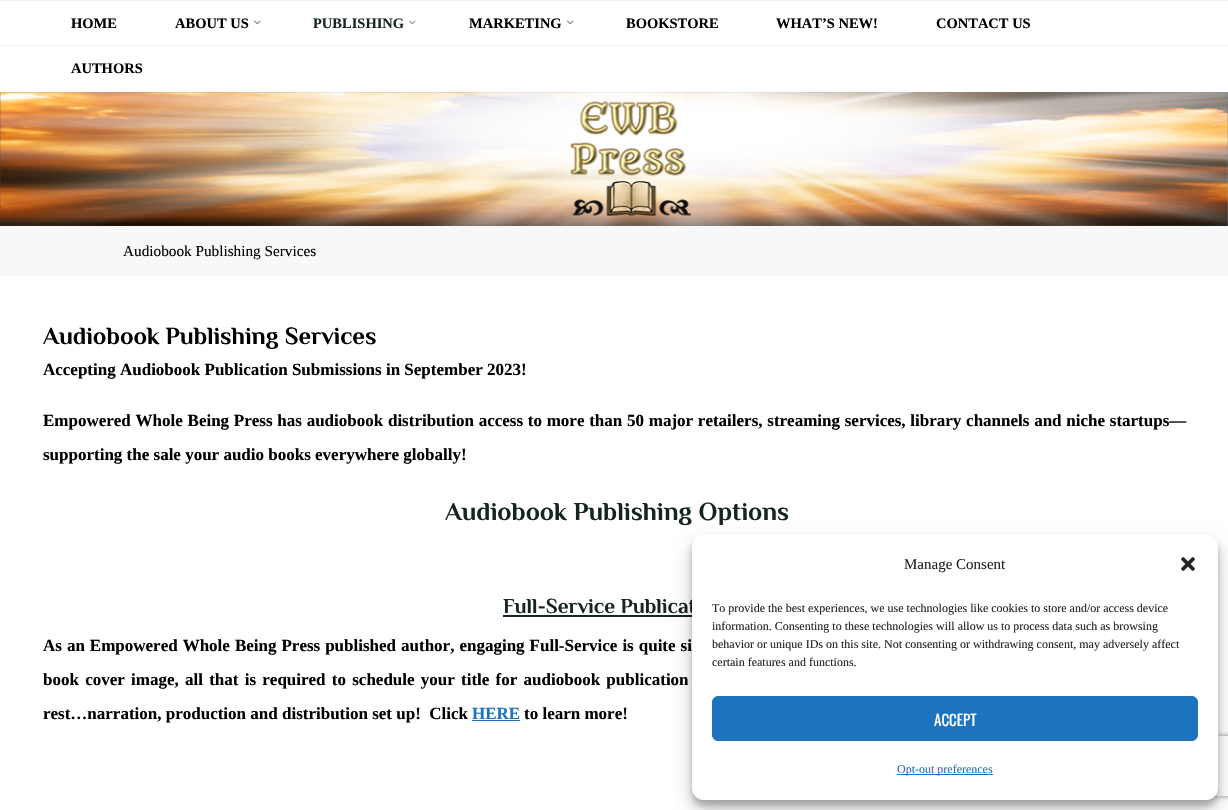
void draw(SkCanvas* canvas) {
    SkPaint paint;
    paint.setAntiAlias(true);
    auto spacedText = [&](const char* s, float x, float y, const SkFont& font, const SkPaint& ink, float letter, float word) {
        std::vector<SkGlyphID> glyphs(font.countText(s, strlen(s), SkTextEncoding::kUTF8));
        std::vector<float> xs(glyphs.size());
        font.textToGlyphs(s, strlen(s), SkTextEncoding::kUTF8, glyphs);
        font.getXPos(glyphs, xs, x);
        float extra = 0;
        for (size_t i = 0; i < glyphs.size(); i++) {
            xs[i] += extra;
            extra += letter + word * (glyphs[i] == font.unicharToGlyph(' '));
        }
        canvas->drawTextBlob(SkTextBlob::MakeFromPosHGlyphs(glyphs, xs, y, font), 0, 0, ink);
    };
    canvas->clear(0xFFFFFFFF);
    canvas->drawImageRect(SkImages::DeferredFromEncodedData(SkData::MakeFromFileName("img1.png")), SkRect::MakeXYWH(0, 92, 1228, 134), SkSamplingOptions());
    paint.setColor(0xFFF2F2F2);
    canvas->drawRect(SkRect::MakeXYWH(0, 0, 1228, 1), paint);
    canvas->drawRect(SkRect::MakeXYWH(0, 45, 1228, 1), paint);
    SkFont font1(fontMgr->matchFamilyStyle("Liberation Serif", SkFontStyle::Bold()), 14.5f);
    font1.setSubpixel(true);
    paint.setColor(0xFF000000);
    canvas->drawString("HOME", 71, 28, font1, paint);
    canvas->drawString("ABOUT US", 175, 28, font1, paint);
    canvas->drawImageRect(SkImages::DeferredFromEncodedData(SkData::MakeFromFileName("img2.png")), SkRect::MakeXYWH(254, 20, 7, 5), SkSamplingOptions());
    paint.setColor(0xFF162521);
    canvas->drawString("PUBLISHING", 313, 28, font1, paint);
    canvas->drawImageRect(SkImages::DeferredFromEncodedData(SkData::MakeFromFileName("img3.png")), SkRect::MakeXYWH(409, 20, 7, 5), SkSamplingOptions());
    paint.setColor(0xFF000000);
    canvas->drawString("MARKETING", 469, 28, font1, paint);
    canvas->drawImageRect(SkImages::DeferredFromEncodedData(SkData::MakeFromFileName("img2.png")), SkRect::MakeXYWH(567, 20, 7, 5), SkSamplingOptions());
    canvas->drawString("BOOKSTORE", 626, 28, font1, paint);
    canvas->drawString("WHAT’S NEW!", 776, 28, font1, paint);
    canvas->drawString("CONTACT US", 936, 28, font1, paint);
    canvas->drawString("AUTHORS", 71, 73, font1, paint);
    canvas->drawImageRect(SkImages::DeferredFromEncodedData(SkData::MakeFromFileName("img4.png")), SkRect::MakeXYWH(0, 92, 1228, 134), SkSamplingOptions());
    paint.setColor(0xFFF8F8F8);
    canvas->drawRect(SkRect::MakeXYWH(0, 226, 1228, 50), paint);
    SkFont font2(fontMgr->matchFamilyStyle("Liberation Serif", SkFontStyle::Normal()), 15.25f);
    font2.setSubpixel(true);
    paint.setColor(0xFF000000);
    canvas->drawString("Audiobook Publishing Services", 123, 256, font2, paint);
    SkFont font3(fontMgr->matchFamilyStyle("Philosopher", SkFontStyle::Bold()), 24.6f);
    font3.setSubpixel(true);
    canvas->drawString("Audiobook Publishing Services", 43, 344, font3, paint);
    SkFont font4(fontMgr->matchFamilyStyle("Liberation Serif", SkFontStyle::Bold()), 17);
    font4.setSubpixel(true);
    canvas->drawString("Accepting Audiobook Publication Submissions in September 2023!", 43, 375, font4, paint);
    spacedText("Empowered Whole Being Press has audiobook distribution access to more than 50 major retailers, streaming services, library channels and niche startups—", 43, 426, font4, paint, 0, 0.5f);
    canvas->drawString("supporting the sale your audio books everywhere globally!", 43, 460, font4, paint);
    SkFont font5(fontMgr->matchFamilyStyle("Philosopher", SkFontStyle::Bold()), 25.8f);
    font5.setSubpixel(true);
    paint.setColor(0xFF162521);
    canvas->drawString("Audiobook Publishing Options", 445, 520, font5, paint);
    SkFont font6(fontMgr->matchFamilyStyle("Philosopher", SkFontStyle::Bold()), 21.25f);
    font6.setSubpixel(true);
    canvas->drawString("Full-Service Publicat", 503, 613, font6, paint);
    canvas->drawRect(SkRect::MakeXYWH(503, 615, 189, 2), paint);
    paint.setColor(0xFF000000);
    spacedText("As an Empowered Whole Being Press published author, engaging Full-Service is quite si", 43, 651, font4, paint, 0, 0.75f);
    spacedText("book cover image, all that is required to schedule your title for audiobook publication", 43, 685, font4, paint, 0, 2);
    canvas->drawString("rest…narration, production and distribution set up!  Click", 43, 719, font4, paint);
    paint.setColor(0xFF1E73BE);
    canvas->drawRect(SkRect::MakeXYWH(472, 720, 48, 1), paint);
    canvas->drawString("HERE", 472, 719, font4, paint);
    paint.setColor(0xFF000000);
    canvas->drawString("to learn more!", 524, 719, font4, paint);
    paint.setColor(0x3B000000);
    paint.setMaskFilter(SkMaskFilter::MakeBlur(kNormal_SkBlurStyle, 3));
    canvas->drawRoundRect(SkRect::MakeXYWH(692, 540, 526, 266), 12, 12, paint);
    paint.setMaskFilter(nullptr);
    paint.setColor(0x30000000);
    paint.setMaskFilter(SkMaskFilter::MakeBlur(kNormal_SkBlurStyle, 10));
    canvas->drawRoundRect(SkRect::MakeXYWH(692, 544, 526, 266), 12, 12, paint);
    paint.setMaskFilter(nullptr);
    canvas->save();
    canvas->clipPath(SkPathBuilder(SkPathFillType::kEvenOdd).moveTo(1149, 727).lineTo(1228, 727).lineTo(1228, 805).lineTo(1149, 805).close().moveTo(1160, 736).lineTo(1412, 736).cubicTo(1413, 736, 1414, 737, 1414, 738).lineTo(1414, 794).cubicTo(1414, 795, 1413, 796, 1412, 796).lineTo(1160, 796).cubicTo(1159, 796, 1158, 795, 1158, 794).lineTo(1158, 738).cubicTo(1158, 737, 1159, 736, 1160, 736).close().detach(), true);
    paint.setColor(0xFF808080);
    paint.setMaskFilter(SkMaskFilter::MakeBlur(kNormal_SkBlurStyle, 2.5f));
    canvas->drawRoundRect(SkRect::MakeXYWH(1158, 736, 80, 60), 2, 2, paint);
    paint.setMaskFilter(nullptr);
    canvas->restore();
    paint.setColor(0xFFFFFFFF);
    canvas->drawRoundRect(SkRect::MakeXYWH(692, 534, 526, 266), 12, 12, paint);
    SkFont font7(fontMgr->matchFamilyStyle("Liberation Serif", SkFontStyle::Normal()), 15);
    font7.setSubpixel(true);
    paint.setColor(0xFF222222);
    canvas->drawString("Manage Consent", 904, 569, font7, paint);
    canvas->drawImageRect(SkImages::DeferredFromEncodedData(SkData::MakeFromFileName("img5.png")), SkRect::MakeXYWH(1181, 557, 14, 14), SkSamplingOptions());
    SkFont font8(fontMgr->matchFamilyStyle("Liberation Serif", SkFontStyle::Normal()), 12);
    font8.setSubpixel(true);
    canvas->drawString("To provide the best experiences, we use technologies like cookies to store and/or access device", 712, 612, font8, paint);
    canvas->drawString("information. Consenting to these technologies will allow us to process data such as browsing", 712, 630, font8, paint);
    canvas->drawString("behavior or unique IDs on this site. Not consenting or withdrawing consent, may adversely affect", 712, 648, font8, paint);
    canvas->drawString("certain features and functions.", 712, 666, font8, paint);
    paint.setColor(0xFF1E73BE);
    canvas->drawRoundRect(SkRect::MakeXYWH(712.5f, 696.5f, 485, 44), 5.5f, 5.5f, paint);
    paint.setStyle(SkPaint::kStroke_Style);
    paint.setStrokeWidth(1);
    canvas->drawRoundRect(SkRect::MakeXYWH(712.5f, 696.5f, 485, 44), 5.5f, 5.5f, paint);
    SkFont font9(fontMgr->matchFamilyStyle("Oswald", SkFontStyle::Normal()), 15);
    font9.setSubpixel(true);
    paint.setStyle(SkPaint::kFill_Style);
    paint.setColor(0xFFFFFFFF);
    canvas->drawString("ACCEPT", 934, 726, font9, paint);
    paint.setColor(0xFF1E73BE);
    canvas->drawRect(SkRect::MakeXYWH(897, 774, 96, 1), paint);
    canvas->drawString("Opt-out preferences", 897, 773, font8, paint);
}
